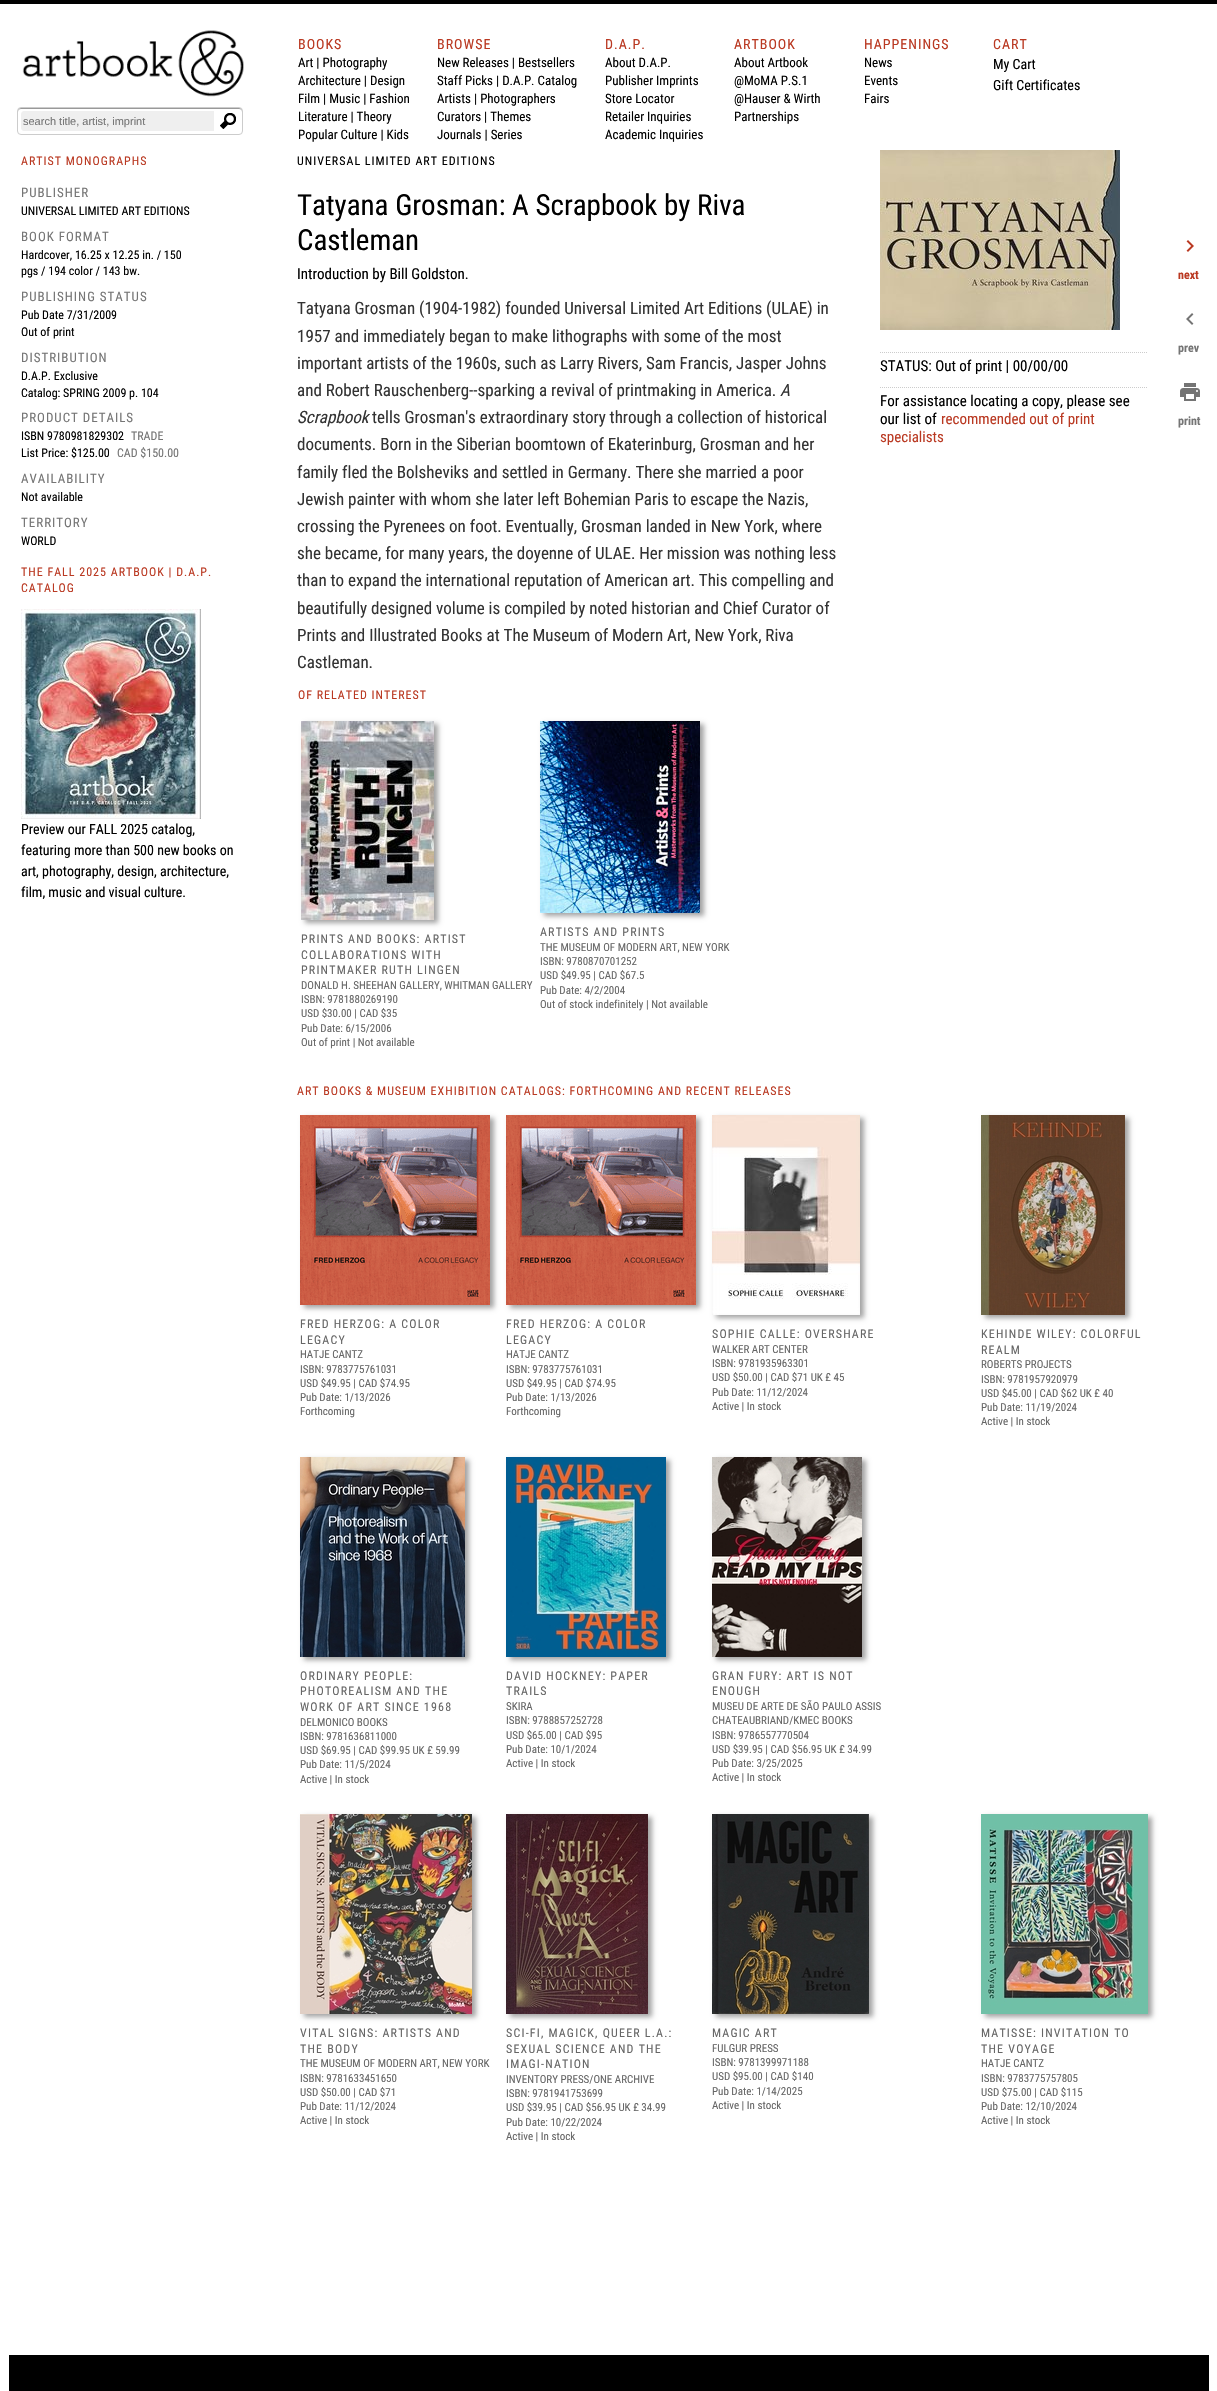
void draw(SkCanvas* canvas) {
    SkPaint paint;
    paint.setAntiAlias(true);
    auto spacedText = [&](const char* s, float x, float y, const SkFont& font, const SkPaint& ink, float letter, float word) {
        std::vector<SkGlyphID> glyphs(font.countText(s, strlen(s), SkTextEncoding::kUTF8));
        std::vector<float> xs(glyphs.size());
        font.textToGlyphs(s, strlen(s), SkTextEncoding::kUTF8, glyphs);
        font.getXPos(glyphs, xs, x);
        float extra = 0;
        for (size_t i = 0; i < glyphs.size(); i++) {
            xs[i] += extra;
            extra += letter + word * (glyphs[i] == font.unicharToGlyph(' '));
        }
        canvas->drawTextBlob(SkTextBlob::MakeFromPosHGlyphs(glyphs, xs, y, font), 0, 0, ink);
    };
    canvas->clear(0xFFFFFFFF);
    paint.setColor(0xFF000000);
    canvas->drawRect(SkRect::MakeXYWH(0, 0, 1217, 4), paint);
    canvas->drawImageRect(SkImages::DeferredFromEncodedData(SkData::MakeFromFileName("img1.png")), SkRect::MakeXYWH(22, 30, 222, 67), SkSamplingOptions());
    paint.setColor(0xFF999999);
    canvas->drawPath(SkPathBuilder().moveTo(21, 109).lineTo(239, 109).cubicTo(241, 109, 242, 110, 242, 112).lineTo(242, 111).cubicTo(242, 109, 241, 108, 239, 108).lineTo(21, 108).cubicTo(19, 108, 18, 109, 18, 111).lineTo(18, 112).cubicTo(18, 110, 19, 109, 21, 109).close().detach(), paint);
    paint.setStyle(SkPaint::kStroke_Style);
    paint.setStrokeWidth(1);
    paint.setColor(0xFFCCCCCC);
    canvas->drawRoundRect(SkRect::MakeXYWH(17.5f, 107.5f, 225, 27), 3.5f, 3.5f, paint);
    paint.setStyle(SkPaint::kFill_Style);
    paint.setColor(0xFFEFEFEF);
    canvas->drawPath(SkPathBuilder().moveTo(24, 111).lineTo(214, 111).lineTo(214, 131).lineTo(24, 131).cubicTo(22.5f, 131, 21, 129.5f, 21, 128).lineTo(21, 114).cubicTo(21, 112.5f, 22.5f, 111, 24, 111).close().detach(), paint);
    SkFont font1(fontMgr->matchFamilyStyle("Liberation Sans", SkFontStyle::Normal()), 11);
    font1.setSubpixel(true);
    paint.setColor(0xFF757575);
    canvas->drawString("search title, artist, imprint", 23, 125, font1, paint);
    canvas->drawImageRect(SkImages::DeferredFromEncodedData(SkData::MakeFromFileName("img2.png")), SkRect::MakeXYWH(220, 113, 16, 16), SkSamplingOptions());
    SkFont font2(fontMgr->matchFamilyStyle("Roboto Condensed", SkFontStyle::Normal()), 14);
    font2.setSubpixel(true);
    paint.setColor(0xFFBA3922);
    spacedText("BOOKS", 298, 49, font2, paint, 1, 0);
    SkFont font3(fontMgr->matchFamilyStyle("Roboto Condensed", SkFontStyle::Normal()), 13);
    font3.setSubpixel(true);
    paint.setColor(0xFF000000);
    canvas->drawString("Art | Photography", 298, 67, font3, paint);
    canvas->drawString("Architecture | Design", 298, 85, font3, paint);
    canvas->drawString("Film | Music | Fashion", 298, 103, font3, paint);
    canvas->drawString("Literature | Theory", 298, 121, font3, paint);
    canvas->drawString("Popular Culture | Kids", 298, 139, font3, paint);
    paint.setColor(0xFFBA3922);
    spacedText("BROWSE", 437, 49, font2, paint, 1, 0);
    paint.setColor(0xFF000000);
    canvas->drawString("New Releases | Bestsellers", 437, 67, font3, paint);
    canvas->drawString("Staff Picks | D.A.P. Catalog", 437, 85, font3, paint);
    canvas->drawString("Artists | Photographers", 437, 103, font3, paint);
    canvas->drawString("Curators | Themes", 437, 121, font3, paint);
    canvas->drawString("Journals | Series", 437, 139, font3, paint);
    paint.setColor(0xFFBA3922);
    spacedText("D.A.P.", 605, 49, font2, paint, 1, 0);
    paint.setColor(0xFF000000);
    canvas->drawString("About D.A.P.", 605, 67, font3, paint);
    canvas->drawString("Publisher Imprints", 605, 85, font3, paint);
    canvas->drawString("Store Locator", 605, 103, font3, paint);
    canvas->drawString("Retailer Inquiries", 605, 121, font3, paint);
    canvas->drawString("Academic Inquiries", 605, 139, font3, paint);
    paint.setColor(0xFFBA3922);
    spacedText("ARTBOOK", 734, 49, font2, paint, 1, 0);
    paint.setColor(0xFF000000);
    canvas->drawString("About Artbook", 734, 67, font3, paint);
    canvas->drawString("@MoMA P.S.1", 734, 85, font3, paint);
    canvas->drawString("@Hauser & Wirth", 734, 103, font3, paint);
    canvas->drawString("Partnerships", 734, 121, font3, paint);
    paint.setColor(0xFFBA3922);
    spacedText("HAPPENINGS", 864, 49, font2, paint, 1, 0);
    paint.setColor(0xFF000000);
    canvas->drawString("News", 864, 67, font3, paint);
    canvas->drawString("Events", 864, 85, font3, paint);
    canvas->drawString("Fairs", 864, 103, font3, paint);
    paint.setColor(0xFFBA3922);
    spacedText("CART", 993, 49, font2, paint, 1, 0);
    paint.setColor(0xFF000000);
    canvas->drawString("My Cart", 993, 69, font2, paint);
    canvas->drawString("Gift Certificates", 993, 90, font2, paint);
    SkFont font4(fontMgr->matchFamilyStyle("Roboto Condensed", SkFontStyle::Normal()), 12);
    font4.setSubpixel(true);
    paint.setColor(0xFFBA3922);
    spacedText("ARTIST MONOGRAPHS", 21, 165, font4, paint, 1, 0);
    paint.setColor(0xFF757575);
    spacedText("PUBLISHER", 21, 197, font3, paint, 1, 0);
    paint.setColor(0xFF000000);
    canvas->drawString("UNIVERSAL LIMITED ART EDITIONS", 21, 215, font4, paint);
    paint.setColor(0xFF757575);
    spacedText("BOOK FORMAT", 21, 241, font3, paint, 1, 0);
    paint.setColor(0xFF000000);
    canvas->drawString("Hardcover, 16.25 x 12.25 in. / 150", 21, 259, font4, paint);
    canvas->drawString("pgs / 194 color / 143 bw.", 21, 275, font4, paint);
    paint.setColor(0xFF757575);
    spacedText("PUBLISHING STATUS", 21, 301, font3, paint, 1, 0);
    paint.setColor(0xFF000000);
    canvas->drawString("Pub Date 7/31/2009", 21, 319, font4, paint);
    canvas->drawString("Out of print", 21, 336, font4, paint);
    paint.setColor(0xFF757575);
    spacedText("DISTRIBUTION", 21, 362, font3, paint, 1, 0);
    paint.setColor(0xFF000000);
    canvas->drawString("D.A.P. Exclusive", 21, 380, font4, paint);
    canvas->drawString("Catalog: SPRING 2009 p. 104", 21, 397, font4, paint);
    paint.setColor(0xFF757575);
    spacedText("PRODUCT DETAILS", 21, 422, font3, paint, 1, 0);
    paint.setColor(0xFF000000);
    canvas->drawString("ISBN 9780981829302", 21, 440, font4, paint);
    paint.setColor(0xFF757575);
    canvas->drawString("TRADE", 131, 440, font4, paint);
    paint.setColor(0xFF000000);
    canvas->drawString("List Price: $125.00", 21, 457, font4, paint);
    paint.setColor(0xFF757575);
    canvas->drawString("CAD $150.00", 117, 457, font4, paint);
    spacedText("AVAILABILITY", 21, 483, font3, paint, 1, 0);
    paint.setColor(0xFF000000);
    canvas->drawString("Not available", 21, 501, font4, paint);
    paint.setColor(0xFF757575);
    spacedText("TERRITORY", 21, 527, font3, paint, 1, 0);
    paint.setColor(0xFF000000);
    canvas->drawString("WORLD", 21, 545, font4, paint);
    paint.setColor(0xFFBA3922);
    spacedText("THE FALL 2025 ARTBOOK | D.A.P.", 21, 576, font4, paint, 1, 0);
    spacedText("CATALOG", 21, 592, font4, paint, 1, 0);
    canvas->drawImageRect(SkImages::DeferredFromEncodedData(SkData::MakeFromFileName("img3.png")), SkRect::MakeXYWH(21, 609, 180, 210), SkSamplingOptions());
    paint.setColor(0xFF000000);
    canvas->drawString("Preview our FALL 2025 catalog,", 21, 834, font2, paint);
    canvas->drawString("featuring more than 500 new books on", 21, 855, font2, paint);
    canvas->drawString("art, photography, design, architecture,", 21, 876, font2, paint);
    canvas->drawString("film, music and visual culture.", 21, 897, font2, paint);
    spacedText("UNIVERSAL LIMITED ART EDITIONS", 297, 165, font4, paint, 1, 0);
    SkFont font5(fontMgr->matchFamilyStyle("Roboto Condensed", SkFontStyle::Normal()), 29);
    font5.setSubpixel(true);
    canvas->drawString("Tatyana Grosman: A Scrapbook by Riva", 297, 215, font5, paint);
    canvas->drawString("Castleman", 297, 250, font5, paint);
    SkFont font6(fontMgr->matchFamilyStyle("Roboto Condensed", SkFontStyle::Normal()), 15);
    font6.setSubpixel(true);
    canvas->drawString("Introduction by Bill Goldston.", 297, 279, font6, paint);
    SkFont font7(fontMgr->matchFamilyStyle("Roboto Condensed", SkFontStyle::Normal()), 17);
    font7.setSubpixel(true);
    paint.setColor(0xFF333333);
    canvas->drawString("Tatyana Grosman (1904-1982) founded Universal Limited Art Editions (ULAE) in", 297, 314, font7, paint);
    canvas->drawString("1957 and immediately began to make lithographs with some of the most", 297, 342, font7, paint);
    canvas->drawString("important artists of the 1960s, such as Larry Rivers, Sam Francis, Jasper Johns", 297, 369, font7, paint);
    canvas->drawString("and Robert Rauschenberg--sparking a revival of printmaking in America.", 297, 396, font7, paint);
    SkFont font8(fontMgr->matchFamilyStyle("Roboto Condensed", SkFontStyle::Italic()), 17);
    font8.setSubpixel(true);
    canvas->drawString("A", 780, 396, font8, paint);
    canvas->drawString("Scrapbook", 297, 423, font8, paint);
    canvas->drawString("tells Grosman's extraordinary story through a collection of historical", 372, 423, font7, paint);
    canvas->drawString("documents. Born in the Siberian boomtown of Ekaterinburg, Grosman and her", 297, 450, font7, paint);
    canvas->drawString("family fled the Bolsheviks and settled in Germany. There she married a poor", 297, 478, font7, paint);
    canvas->drawString("Jewish painter with whom she later left Bohemian Paris to escape the Nazis,", 297, 505, font7, paint);
    canvas->drawString("crossing the Pyrenees on foot. Eventually, Grosman landed in New York, where", 297, 532, font7, paint);
    canvas->drawString("she became, for many years, the doyenne of ULAE. Her mission was nothing less", 297, 559, font7, paint);
    canvas->drawString("than to expand the international reputation of American art. This compelling and", 297, 586, font7, paint);
    canvas->drawString("beautifully designed volume is compiled by noted historian and Chief Curator of", 297, 614, font7, paint);
    canvas->drawString("Prints and Illustrated Books at The Museum of Modern Art, New York, Riva", 297, 641, font7, paint);
    canvas->drawString("Castleman.", 297, 668, font7, paint);
    canvas->drawImageRect(SkImages::DeferredFromEncodedData(SkData::MakeFromFileName("img4.png")), SkRect::MakeXYWH(880, 150, 240, 180), SkSamplingOptions());
    paint.setStyle(SkPaint::kStroke_Style);
    paint.setColor(0xFFCCCCCC);
    paint.setPathEffect(SkDashPathEffect::Make({{1, 1}}, 0));
    canvas->drawPath(SkPathBuilder().moveTo(880, 352.5f).lineTo(1147, 352.5f).detach(), paint);
    paint.setPathEffect(nullptr);
    paint.setStyle(SkPaint::kFill_Style);
    paint.setColor(0xFF000000);
    canvas->drawString("STATUS: Out of print | 00/00/00", 880, 371, font6, paint);
    paint.setStyle(SkPaint::kStroke_Style);
    paint.setColor(0xFFCCCCCC);
    paint.setPathEffect(SkDashPathEffect::Make({{1, 1}}, 0));
    canvas->drawPath(SkPathBuilder().moveTo(880, 387.5f).lineTo(1147, 387.5f).detach(), paint);
    paint.setPathEffect(nullptr);
    paint.setStyle(SkPaint::kFill_Style);
    paint.setColor(0xFF000000);
    canvas->drawString("For assistance locating a copy, please see", 880, 406, font6, paint);
    canvas->drawString("our list of", 880, 424, font6, paint);
    paint.setColor(0xFFBA3922);
    canvas->drawString("recommended out of print", 941, 424, font6, paint);
    canvas->drawString("specialists", 880, 442, font6, paint);
    spacedText("OF RELATED INTEREST", 298, 699, font4, paint, 1, 0);
    paint.setColor(0xFFA3A3A3);
    paint.setMaskFilter(SkMaskFilter::MakeBlur(kNormal_SkBlurStyle, 2.5f));
    canvas->drawRect(SkRect::MakeXYWH(305, 724, 133, 199), paint);
    paint.setMaskFilter(nullptr);
    canvas->drawImageRect(SkImages::DeferredFromEncodedData(SkData::MakeFromFileName("img5.png")), SkRect::MakeXYWH(301, 721, 133, 199), SkSamplingOptions());
    paint.setColor(0xFF666666);
    spacedText("PRINTS AND BOOKS: ARTIST", 301, 943, font4, paint, 1.2f, 0);
    spacedText("COLLABORATIONS WITH", 301, 959, font4, paint, 1.2f, 0);
    spacedText("PRINTMAKER RUTH LINGEN", 301, 974, font4, paint, 1.2f, 0);
    SkFont font9(fontMgr->matchFamilyStyle("Roboto Condensed", SkFontStyle::Normal()), 11);
    font9.setSubpixel(true);
    canvas->drawString("DONALD H. SHEEHAN GALLERY, WHITMAN GALLERY", 301, 989, font9, paint);
    canvas->drawString("ISBN: 9781880269190", 301, 1003, font9, paint);
    canvas->drawString("USD $30.00 | CAD $35", 301, 1017, font9, paint);
    canvas->drawString("Pub Date: 6/15/2006", 301, 1032, font9, paint);
    canvas->drawString("Out of print | Not available", 301, 1046, font9, paint);
    paint.setColor(0xFFA3A3A3);
    paint.setMaskFilter(SkMaskFilter::MakeBlur(kNormal_SkBlurStyle, 2.5f));
    canvas->drawRect(SkRect::MakeXYWH(544, 724, 160, 192), paint);
    paint.setMaskFilter(nullptr);
    canvas->drawImageRect(SkImages::DeferredFromEncodedData(SkData::MakeFromFileName("img6.png")), SkRect::MakeXYWH(540, 721, 160, 192), SkSamplingOptions());
    paint.setColor(0xFF666666);
    spacedText("ARTISTS AND PRINTS", 540, 936, font4, paint, 1.2f, 0);
    canvas->drawString("THE MUSEUM OF MODERN ART, NEW YORK", 540, 951, font9, paint);
    canvas->drawString("ISBN: 9780870701252", 540, 965, font9, paint);
    canvas->drawString("USD $49.95 | CAD $67.5", 540, 979, font9, paint);
    canvas->drawString("Pub Date: 4/2/2004", 540, 994, font9, paint);
    canvas->drawString("Out of stock indefinitely | Not available", 540, 1008, font9, paint);
    paint.setColor(0xFFBA3922);
    spacedText("ART BOOKS & MUSEUM EXHIBITION CATALOGS: FORTHCOMING AND RECENT RELEASES", 297, 1095, font4, paint, 1, 0);
    paint.setColor(0xFFA3A3A3);
    paint.setMaskFilter(SkMaskFilter::MakeBlur(kNormal_SkBlurStyle, 2.5f));
    canvas->drawRect(SkRect::MakeXYWH(304, 1118, 190, 190), paint);
    paint.setMaskFilter(nullptr);
    canvas->drawImageRect(SkImages::DeferredFromEncodedData(SkData::MakeFromFileName("img7.png")), SkRect::MakeXYWH(300, 1115, 190, 190), SkSamplingOptions());
    paint.setColor(0xFF666666);
    spacedText("FRED HERZOG: A COLOR", 300, 1328, font4, paint, 1.2f, 0);
    spacedText("LEGACY", 300, 1344, font4, paint, 1.2f, 0);
    canvas->drawString("HATJE CANTZ", 300, 1358, font9, paint);
    canvas->drawString("ISBN: 9783775761031", 300, 1373, font9, paint);
    canvas->drawString("USD $49.95 | CAD $74.95", 300, 1387, font9, paint);
    canvas->drawString("Pub Date: 1/13/2026", 300, 1401, font9, paint);
    canvas->drawString("Forthcoming", 300, 1415, font9, paint);
    paint.setColor(0xFFA3A3A3);
    paint.setMaskFilter(SkMaskFilter::MakeBlur(kNormal_SkBlurStyle, 2.5f));
    canvas->drawRect(SkRect::MakeXYWH(510, 1118, 190, 190), paint);
    paint.setMaskFilter(nullptr);
    canvas->drawImageRect(SkImages::DeferredFromEncodedData(SkData::MakeFromFileName("img7.png")), SkRect::MakeXYWH(506, 1115, 190, 190), SkSamplingOptions());
    paint.setColor(0xFF666666);
    spacedText("FRED HERZOG: A COLOR", 506, 1328, font4, paint, 1.2f, 0);
    spacedText("LEGACY", 506, 1344, font4, paint, 1.2f, 0);
    canvas->drawString("HATJE CANTZ", 506, 1358, font9, paint);
    canvas->drawString("ISBN: 9783775761031", 506, 1373, font9, paint);
    canvas->drawString("USD $49.95 | CAD $74.95", 506, 1387, font9, paint);
    canvas->drawString("Pub Date: 1/13/2026", 506, 1401, font9, paint);
    canvas->drawString("Forthcoming", 506, 1415, font9, paint);
    paint.setColor(0xFFA3A3A3);
    paint.setMaskFilter(SkMaskFilter::MakeBlur(kNormal_SkBlurStyle, 2.5f));
    canvas->drawRect(SkRect::MakeXYWH(716, 1118, 148, 200), paint);
    paint.setMaskFilter(nullptr);
    canvas->drawImageRect(SkImages::DeferredFromEncodedData(SkData::MakeFromFileName("img8.png")), SkRect::MakeXYWH(712, 1115, 148, 200), SkSamplingOptions());
    paint.setColor(0xFF666666);
    spacedText("SOPHIE CALLE: OVERSHARE", 712, 1338, font4, paint, 1.2f, 0);
    canvas->drawString("WALKER ART CENTER", 712, 1353, font9, paint);
    canvas->drawString("ISBN: 9781935963301", 712, 1367, font9, paint);
    canvas->drawString("USD $50.00 | CAD $71 UK £ 45", 712, 1381, font9, paint);
    canvas->drawString("Pub Date: 11/12/2024", 712, 1396, font9, paint);
    canvas->drawString("Active | In stock", 712, 1410, font9, paint);
    paint.setColor(0xFFA3A3A3);
    paint.setMaskFilter(SkMaskFilter::MakeBlur(kNormal_SkBlurStyle, 2.5f));
    canvas->drawRect(SkRect::MakeXYWH(985, 1118, 144, 200), paint);
    paint.setMaskFilter(nullptr);
    canvas->drawImageRect(SkImages::DeferredFromEncodedData(SkData::MakeFromFileName("img9.png")), SkRect::MakeXYWH(981, 1115, 144, 200), SkSamplingOptions());
    paint.setColor(0xFF666666);
    spacedText("KEHINDE WILEY: COLORFUL", 981, 1338, font4, paint, 1.2f, 0);
    spacedText("REALM", 981, 1354, font4, paint, 1.2f, 0);
    canvas->drawString("ROBERTS PROJECTS", 981, 1368, font9, paint);
    canvas->drawString("ISBN: 9781957920979", 981, 1383, font9, paint);
    canvas->drawString("USD $45.00 | CAD $62 UK £ 40", 981, 1397, font9, paint);
    canvas->drawString("Pub Date: 11/19/2024", 981, 1411, font9, paint);
    canvas->drawString("Active | In stock", 981, 1425, font9, paint);
    paint.setColor(0xFFA3A3A3);
    paint.setMaskFilter(SkMaskFilter::MakeBlur(kNormal_SkBlurStyle, 2.5f));
    canvas->drawRect(SkRect::MakeXYWH(304, 1460, 165, 200), paint);
    paint.setMaskFilter(nullptr);
    canvas->drawImageRect(SkImages::DeferredFromEncodedData(SkData::MakeFromFileName("img10.png")), SkRect::MakeXYWH(300, 1457, 165, 200), SkSamplingOptions());
    paint.setColor(0xFF666666);
    spacedText("ORDINARY PEOPLE:", 300, 1680, font4, paint, 1.2f, 0);
    spacedText("PHOTOREALISM AND THE", 300, 1695, font4, paint, 1.2f, 0);
    spacedText("WORK OF ART SINCE 1968", 300, 1711, font4, paint, 1.2f, 0);
    canvas->drawString("DELMONICO BOOKS", 300, 1726, font9, paint);
    canvas->drawString("ISBN: 9781636811000", 300, 1740, font9, paint);
    canvas->drawString("USD $69.95 | CAD $99.95 UK £ 59.99", 300, 1754, font9, paint);
    canvas->drawString("Pub Date: 11/5/2024", 300, 1768, font9, paint);
    canvas->drawString("Active | In stock", 300, 1783, font9, paint);
    paint.setColor(0xFFA3A3A3);
    paint.setMaskFilter(SkMaskFilter::MakeBlur(kNormal_SkBlurStyle, 2.5f));
    canvas->drawRect(SkRect::MakeXYWH(510, 1460, 160, 200), paint);
    paint.setMaskFilter(nullptr);
    canvas->drawImageRect(SkImages::DeferredFromEncodedData(SkData::MakeFromFileName("img11.png")), SkRect::MakeXYWH(506, 1457, 160, 200), SkSamplingOptions());
    paint.setColor(0xFF666666);
    spacedText("DAVID HOCKNEY: PAPER", 506, 1680, font4, paint, 1.2f, 0);
    spacedText("TRAILS", 506, 1695, font4, paint, 1.2f, 0);
    canvas->drawString("SKIRA", 506, 1710, font9, paint);
    canvas->drawString("ISBN: 9788857252728", 506, 1724, font9, paint);
    canvas->drawString("USD $65.00 | CAD $95", 506, 1739, font9, paint);
    canvas->drawString("Pub Date: 10/1/2024", 506, 1753, font9, paint);
    canvas->drawString("Active | In stock", 506, 1767, font9, paint);
    paint.setColor(0xFFA3A3A3);
    paint.setMaskFilter(SkMaskFilter::MakeBlur(kNormal_SkBlurStyle, 2.5f));
    canvas->drawRect(SkRect::MakeXYWH(716, 1460, 150, 200), paint);
    paint.setMaskFilter(nullptr);
    canvas->drawImageRect(SkImages::DeferredFromEncodedData(SkData::MakeFromFileName("img12.png")), SkRect::MakeXYWH(712, 1457, 150, 200), SkSamplingOptions());
    paint.setColor(0xFF666666);
    spacedText("GRAN FURY: ART IS NOT", 712, 1680, font4, paint, 1.2f, 0);
    spacedText("ENOUGH", 712, 1695, font4, paint, 1.2f, 0);
    canvas->drawString("MUSEU DE ARTE DE SÃO PAULO ASSIS", 712, 1710, font9, paint);
    canvas->drawString("CHATEAUBRIAND/KMEC BOOKS", 712, 1724, font9, paint);
    canvas->drawString("ISBN: 9786557770504", 712, 1739, font9, paint);
    canvas->drawString("USD $39.95 | CAD $56.95 UK £ 34.99", 712, 1753, font9, paint);
    canvas->drawString("Pub Date: 3/25/2025", 712, 1767, font9, paint);
    canvas->drawString("Active | In stock", 712, 1781, font9, paint);
    paint.setColor(0xFFA3A3A3);
    paint.setMaskFilter(SkMaskFilter::MakeBlur(kNormal_SkBlurStyle, 2.5f));
    canvas->drawRect(SkRect::MakeXYWH(304, 1817, 172, 200), paint);
    paint.setMaskFilter(nullptr);
    canvas->drawImageRect(SkImages::DeferredFromEncodedData(SkData::MakeFromFileName("img13.png")), SkRect::MakeXYWH(300, 1814, 172, 200), SkSamplingOptions());
    paint.setColor(0xFF666666);
    spacedText("VITAL SIGNS: ARTISTS AND", 300, 2037, font4, paint, 1.2f, 0);
    spacedText("THE BODY", 300, 2053, font4, paint, 1.2f, 0);
    canvas->drawString("THE MUSEUM OF MODERN ART, NEW YORK", 300, 2067, font9, paint);
    canvas->drawString("ISBN: 9781633451650", 300, 2082, font9, paint);
    canvas->drawString("USD $50.00 | CAD $71", 300, 2096, font9, paint);
    canvas->drawString("Pub Date: 11/12/2024", 300, 2110, font9, paint);
    canvas->drawString("Active | In stock", 300, 2124, font9, paint);
    paint.setColor(0xFFA3A3A3);
    paint.setMaskFilter(SkMaskFilter::MakeBlur(kNormal_SkBlurStyle, 2.5f));
    canvas->drawRect(SkRect::MakeXYWH(510, 1817, 142, 200), paint);
    paint.setMaskFilter(nullptr);
    canvas->drawImageRect(SkImages::DeferredFromEncodedData(SkData::MakeFromFileName("img14.png")), SkRect::MakeXYWH(506, 1814, 142, 200), SkSamplingOptions());
    paint.setColor(0xFF666666);
    spacedText("SCI-FI, MAGICK, QUEER L.A.:", 506, 2037, font4, paint, 1.2f, 0);
    spacedText("SEXUAL SCIENCE AND THE", 506, 2053, font4, paint, 1.2f, 0);
    spacedText("IMAGI-NATION", 506, 2068, font4, paint, 1.2f, 0);
    canvas->drawString("INVENTORY PRESS/ONE ARCHIVE", 506, 2083, font9, paint);
    canvas->drawString("ISBN: 9781941753699", 506, 2097, font9, paint);
    canvas->drawString("USD $39.95 | CAD $56.95 UK £ 34.99", 506, 2111, font9, paint);
    canvas->drawString("Pub Date: 10/22/2024", 506, 2126, font9, paint);
    canvas->drawString("Active | In stock", 506, 2140, font9, paint);
    paint.setColor(0xFFA3A3A3);
    paint.setMaskFilter(SkMaskFilter::MakeBlur(kNormal_SkBlurStyle, 2.5f));
    canvas->drawRect(SkRect::MakeXYWH(716, 1817, 157, 200), paint);
    paint.setMaskFilter(nullptr);
    canvas->drawImageRect(SkImages::DeferredFromEncodedData(SkData::MakeFromFileName("img15.png")), SkRect::MakeXYWH(712, 1814, 157, 200), SkSamplingOptions());
    paint.setColor(0xFF666666);
    spacedText("MAGIC ART", 712, 2037, font4, paint, 1.2f, 0);
    canvas->drawString("FULGUR PRESS", 712, 2052, font9, paint);
    canvas->drawString("ISBN: 9781399971188", 712, 2066, font9, paint);
    canvas->drawString("USD $95.00 | CAD $140", 712, 2080, font9, paint);
    canvas->drawString("Pub Date: 1/14/2025", 712, 2095, font9, paint);
    canvas->drawString("Active | In stock", 712, 2109, font9, paint);
    paint.setColor(0xFFA3A3A3);
    paint.setMaskFilter(SkMaskFilter::MakeBlur(kNormal_SkBlurStyle, 2.5f));
    canvas->drawRect(SkRect::MakeXYWH(985, 1817, 167, 200), paint);
    paint.setMaskFilter(nullptr);
    canvas->drawImageRect(SkImages::DeferredFromEncodedData(SkData::MakeFromFileName("img16.png")), SkRect::MakeXYWH(981, 1814, 167, 200), SkSamplingOptions());
    paint.setColor(0xFF666666);
    spacedText("MATISSE: INVITATION TO", 981, 2037, font4, paint, 1.2f, 0);
    spacedText("THE VOYAGE", 981, 2053, font4, paint, 1.2f, 0);
    canvas->drawString("HATJE CANTZ", 981, 2067, font9, paint);
    canvas->drawString("ISBN: 9783775757805", 981, 2082, font9, paint);
    canvas->drawString("USD $75.00 | CAD $115", 981, 2096, font9, paint);
    canvas->drawString("Pub Date: 12/10/2024", 981, 2110, font9, paint);
    canvas->drawString("Active | In stock", 981, 2124, font9, paint);
    canvas->drawImageRect(SkImages::DeferredFromEncodedData(SkData::MakeFromFileName("img17.png")), SkRect::MakeXYWH(1186, 240, 8, 12), SkSamplingOptions());
    SkFont font10(fontMgr->matchFamilyStyle("Roboto Condensed", SkFontStyle::Bold()), 12);
    font10.setSubpixel(true);
    paint.setColor(0xFFBA3922);
    canvas->drawString("next", 1178, 279, font10, paint);
    canvas->drawImageRect(SkImages::DeferredFromEncodedData(SkData::MakeFromFileName("img18.png")), SkRect::MakeXYWH(1186, 313, 8, 12), SkSamplingOptions());
    paint.setColor(0xFF757575);
    canvas->drawString("prev", 1178, 352, font10, paint);
    canvas->drawImageRect(SkImages::DeferredFromEncodedData(SkData::MakeFromFileName("img19.png")), SkRect::MakeXYWH(1180, 383, 20, 18), SkSamplingOptions());
    canvas->drawString("print", 1178, 425, font10, paint);
    paint.setColor(0xFF000000);
    canvas->drawRect(SkRect::MakeXYWH(9, 2355, 1200, 36), paint);
}
